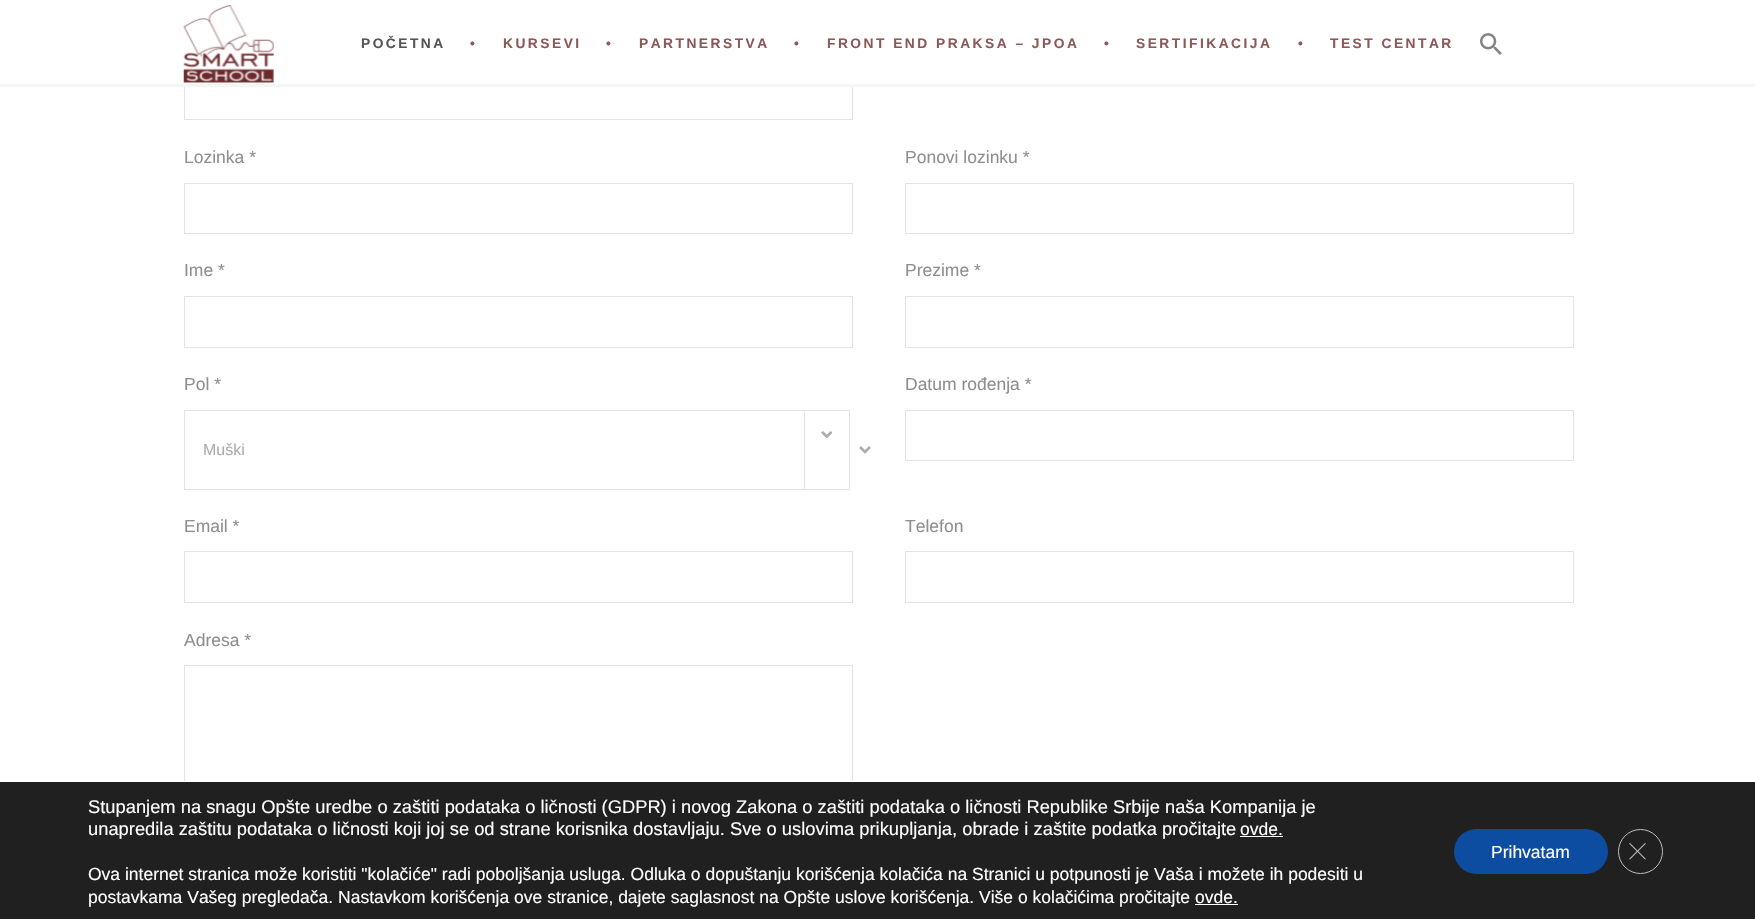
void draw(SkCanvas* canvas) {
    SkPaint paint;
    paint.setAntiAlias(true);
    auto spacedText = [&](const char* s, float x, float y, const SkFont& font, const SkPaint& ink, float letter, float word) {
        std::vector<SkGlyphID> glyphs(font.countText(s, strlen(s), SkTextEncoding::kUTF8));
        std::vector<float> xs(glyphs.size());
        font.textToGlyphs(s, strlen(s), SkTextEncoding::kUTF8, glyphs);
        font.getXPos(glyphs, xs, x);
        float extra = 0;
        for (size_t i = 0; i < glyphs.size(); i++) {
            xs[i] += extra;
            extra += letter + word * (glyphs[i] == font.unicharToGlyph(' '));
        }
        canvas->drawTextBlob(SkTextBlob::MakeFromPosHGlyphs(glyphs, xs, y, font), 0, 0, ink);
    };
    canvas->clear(0xFFFFFFFF);
    paint.setStyle(SkPaint::kStroke_Style);
    paint.setStrokeWidth(1);
    paint.setColor(0xFFE3E3E3);
    canvas->drawRect(SkRect::MakeXYWH(184.5f, 69.5f, 668, 50), paint);
    paint.setStyle(SkPaint::kFill_Style);
    paint.setColor(0xFFF5F5F5);
    canvas->drawRect(SkRect::MakeXYWH(0, 84, 1755, 3), paint);
    paint.setColor(0xFFFFFFFF);
    canvas->drawRect(SkRect::MakeXYWH(184, 69, 669, 15), paint);
    canvas->drawImageRect(SkImages::DeferredFromEncodedData(SkData::MakeFromFileName("img1.png")), SkRect::MakeXYWH(183, 5, 91, 78), SkSamplingOptions());
    SkFont font1(fontMgr->matchFamilyStyle("Liberation Sans", SkFontStyle::Bold()), 13.75f);
    font1.setSubpixel(true);
    paint.setColor(0xFF555555);
    spacedText("POČETNA", 361, 48, font1, paint, 2.5f, 0);
    paint.setColor(0xFF8C5858);
    spacedText("•", 470, 48, font1, paint, 2.5f, 0);
    spacedText("KURSEVI", 503, 48, font1, paint, 2.5f, 0);
    spacedText("•", 606, 48, font1, paint, 2.5f, 0);
    spacedText("PARTNERSTVA", 639, 48, font1, paint, 2.5f, 0);
    spacedText("•", 794, 48, font1, paint, 2.5f, 0);
    spacedText("FRONT END PRAKSA – JPOA", 827, 48, font1, paint, 2.5f, 0);
    spacedText("•", 1104, 48, font1, paint, 2.5f, 0);
    spacedText("SERTIFIKACIJA", 1136, 48, font1, paint, 2.5f, 0);
    spacedText("•", 1298, 48, font1, paint, 2.5f, 0);
    spacedText("TEST CENTAR", 1330, 48, font1, paint, 2.5f, 0);
    canvas->drawImageRect(SkImages::DeferredFromEncodedData(SkData::MakeFromFileName("img2.png")), SkRect::MakeXYWH(1480, 33, 22, 22), SkSamplingOptions());
    SkFont font2(fontMgr->matchFamilyStyle("Liberation Sans", SkFontStyle::Normal()), 17.5f);
    font2.setSubpixel(true);
    paint.setColor(0xFF8F8F8F);
    canvas->drawString("Lozinka *", 184, 163, font2, paint);
    paint.setStyle(SkPaint::kStroke_Style);
    paint.setColor(0xFFE3E3E3);
    canvas->drawRect(SkRect::MakeXYWH(184.5f, 183.5f, 668, 50), paint);
    paint.setStyle(SkPaint::kFill_Style);
    paint.setColor(0xFF8F8F8F);
    canvas->drawString("Ponovi lozinku *", 905, 163, font2, paint);
    paint.setStyle(SkPaint::kStroke_Style);
    paint.setColor(0xFFE3E3E3);
    canvas->drawRect(SkRect::MakeXYWH(905.5f, 183.5f, 668, 50), paint);
    paint.setStyle(SkPaint::kFill_Style);
    paint.setColor(0xFF8F8F8F);
    canvas->drawString("Ime *", 184, 276, font2, paint);
    paint.setStyle(SkPaint::kStroke_Style);
    paint.setColor(0xFFE3E3E3);
    canvas->drawRect(SkRect::MakeXYWH(184.5f, 296.5f, 668, 51), paint);
    paint.setStyle(SkPaint::kFill_Style);
    paint.setColor(0xFF8F8F8F);
    canvas->drawString("Prezime *", 905, 276, font2, paint);
    paint.setStyle(SkPaint::kStroke_Style);
    paint.setColor(0xFFE3E3E3);
    canvas->drawRect(SkRect::MakeXYWH(905.5f, 296.5f, 668, 51), paint);
    paint.setStyle(SkPaint::kFill_Style);
    paint.setColor(0xFF8F8F8F);
    canvas->drawString("Pol *", 184, 390, font2, paint);
    paint.setStyle(SkPaint::kStroke_Style);
    paint.setColor(0xFFE3E3E3);
    canvas->drawRect(SkRect::MakeXYWH(184.5f, 410.5f, 665, 79), paint);
    paint.setStrokeWidth(2.5f);
    paint.setColor(0xFFACACAC);
    canvas->drawPath(SkPathBuilder().moveTo(860, 447).lineTo(865, 452).lineTo(870, 447).detach(), paint);
    SkFont font3(fontMgr->matchFamilyStyle("Liberation Sans", SkFontStyle::Normal()), 16);
    font3.setSubpixel(true);
    paint.setStyle(SkPaint::kFill_Style);
    canvas->drawString("Muški", 203, 455, font3, paint);
    paint.setColor(0xFFE3E3E3);
    canvas->drawRect(SkRect::MakeXYWH(804, 411, 1, 78), paint);
    canvas->drawImageRect(SkImages::DeferredFromEncodedData(SkData::MakeFromFileName("img3.png")), SkRect::MakeXYWH(821, 431, 12, 8), SkSamplingOptions());
    paint.setColor(0xFF8F8F8F);
    canvas->drawString("Datum rođenja *", 905, 390, font2, paint);
    paint.setStyle(SkPaint::kStroke_Style);
    paint.setStrokeWidth(1);
    paint.setColor(0xFFE3E3E3);
    canvas->drawRect(SkRect::MakeXYWH(905.5f, 410.5f, 668, 50), paint);
    paint.setStyle(SkPaint::kFill_Style);
    paint.setColor(0xFF8F8F8F);
    canvas->drawString("Email *", 184, 532, font2, paint);
    paint.setStyle(SkPaint::kStroke_Style);
    paint.setColor(0xFFE3E3E3);
    canvas->drawRect(SkRect::MakeXYWH(184.5f, 551.5f, 668, 51), paint);
    paint.setStyle(SkPaint::kFill_Style);
    paint.setColor(0xFF8F8F8F);
    canvas->drawString("Telefon", 905, 532, font2, paint);
    paint.setStyle(SkPaint::kStroke_Style);
    paint.setColor(0xFFE3E3E3);
    canvas->drawRect(SkRect::MakeXYWH(905.5f, 551.5f, 668, 51), paint);
    paint.setStyle(SkPaint::kFill_Style);
    paint.setColor(0xFF8F8F8F);
    canvas->drawString("Adresa *", 184, 646, font2, paint);
    paint.setStyle(SkPaint::kStroke_Style);
    paint.setColor(0xFFE3E3E3);
    canvas->drawRect(SkRect::MakeXYWH(184.5f, 665.5f, 668, 157), paint);
    paint.setStyle(SkPaint::kFill_Style);
    paint.setColor(0xFF202020);
    canvas->drawRect(SkRect::MakeXYWH(0, 782, 1755, 137), paint);
    paint.setColor(0xFFFFFFFF);
    canvas->drawRect(SkRect::MakeXYWH(184, 781, 669, 1), paint);
    SkFont font4(fontMgr->matchFamilyStyle("Liberation Sans", SkFontStyle::Normal()), 18.33f);
    font4.setSubpixel(true);
    canvas->drawString("Stupanjem na snagu Opšte uredbe o zaštiti podataka o ličnosti (GDPR) i novog Zakona o zaštiti podataka o ličnosti Republike Srbije naša Kompanija je", 88, 813, font4, paint);
    canvas->drawString("unapredila zaštitu podataka o ličnosti koji joj se od strane korisnika dostavljaju. Sve o uslovima prikupljanja, obrade i zaštite podatka pročitajte", 88, 835, font4, paint);
    canvas->drawString("ovde.", 1240, 835, font2, paint);
    canvas->drawRect(SkRect::MakeXYWH(1240, 836, 43, 1), paint);
    canvas->drawString("Ova internet stranica može koristiti \"kolačiće\" radi poboljšanja usluga. Odluka o dopuštanju korišćenja kolačića na Stranici u potpunosti je Vaša i možete ih podesiti u", 88, 880, font2, paint);
    canvas->drawString("postavkama Vašeg pregledača. Nastavkom korišćenja ove stranice, dajete saglasnost na Opšte uslove korišćenja. Više o kolačićima pročitajte ovde.", 88, 903, font2, paint);
    canvas->drawRect(SkRect::MakeXYWH(1195, 904, 43, 1), paint);
    paint.setColor(0xFF0C4DA2);
    canvas->drawRoundRect(SkRect::MakeXYWH(1454, 829, 154, 45), 22.5f, 22.5f, paint);
    paint.setColor(0xFFFFFFFF);
    canvas->drawString("Prihvatam", 1491, 858, font2, paint);
    paint.setStyle(SkPaint::kStroke_Style);
    paint.setColor(0xFFBCBCBC);
    canvas->drawCircle(1640.5f, 851.5f, 22, paint);
    paint.setStyle(SkPaint::kFill_Style);
    canvas->drawPath(SkPathBuilder().moveTo(1645, 843).lineTo(1646, 843.5f).lineTo(1630, 859.5f).lineTo(1629, 859).close().detach(), paint);
    canvas->drawPath(SkPathBuilder().moveTo(1629, 843.5f).lineTo(1630, 843).lineTo(1646, 859).lineTo(1645, 859.5f).close().detach(), paint);
}
